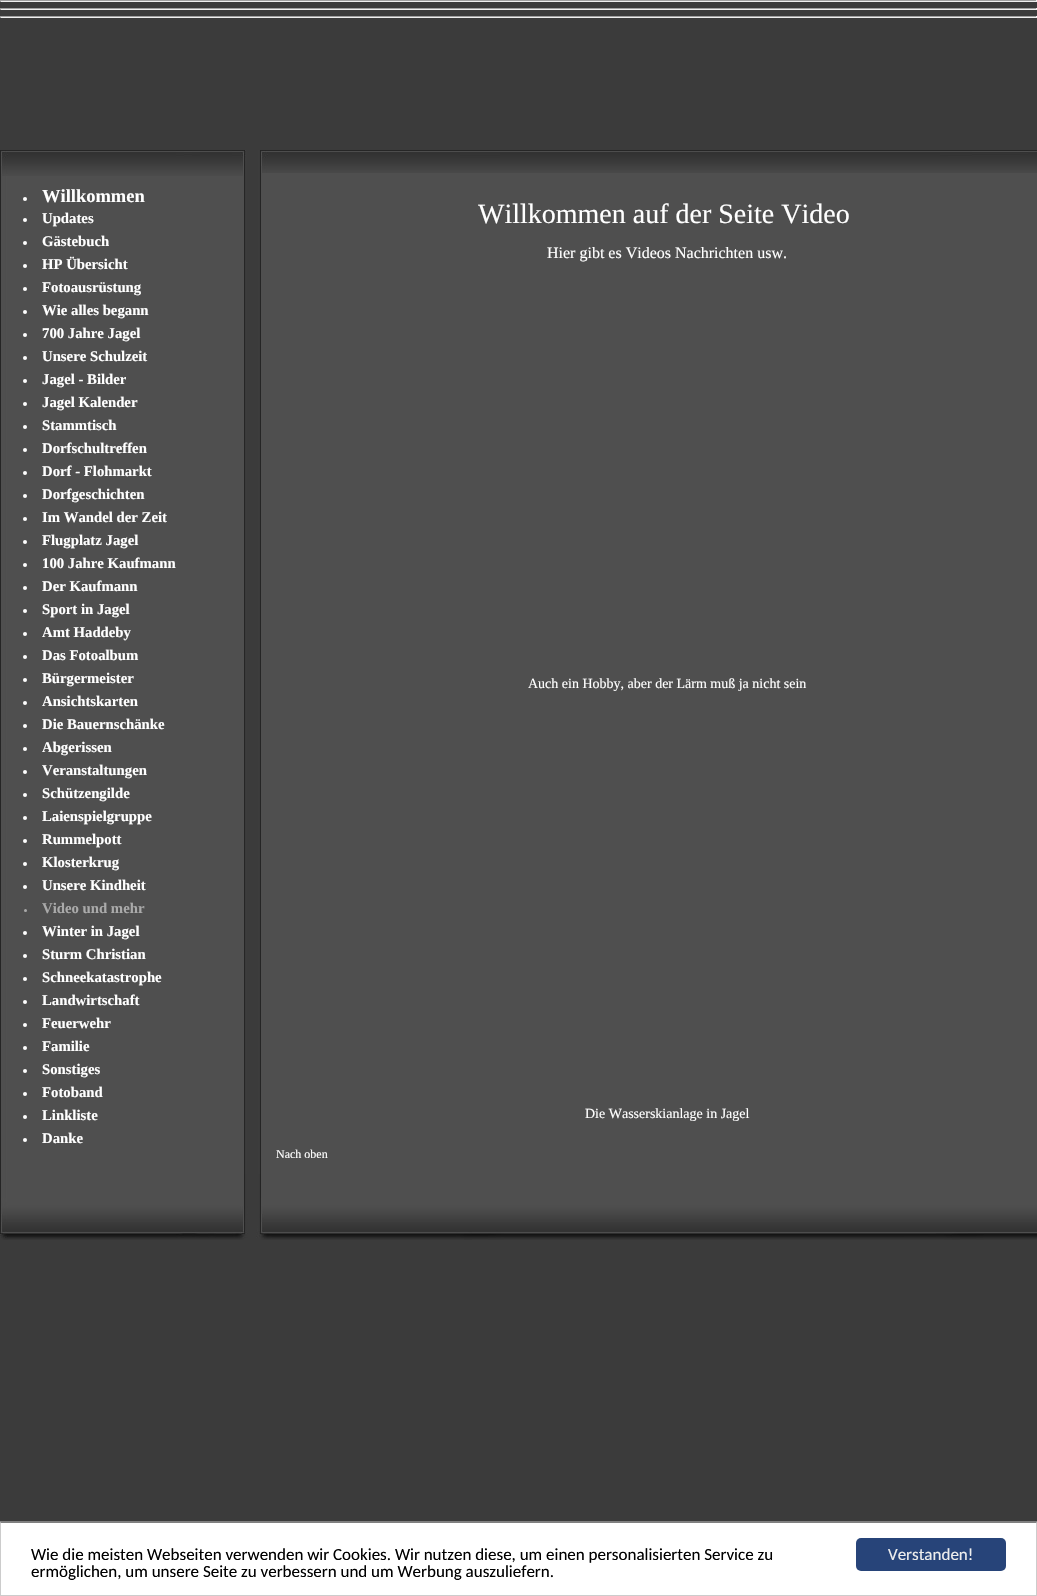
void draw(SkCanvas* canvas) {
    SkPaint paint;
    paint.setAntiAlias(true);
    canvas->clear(0xFF3B3B3B);
    paint.setColor(0xFF9F9F9F);
    canvas->drawRect(SkRect::MakeXYWH(0, 0, 1037, 1), paint);
    paint.setColor(0xFFEEEEEE);
    canvas->drawRect(SkRect::MakeXYWH(1036, 0, 1, 2), paint);
    canvas->drawRect(SkRect::MakeXYWH(0, 1, 1037, 1), paint);
    paint.setColor(0xFF9F9F9F);
    canvas->drawRect(SkRect::MakeXYWH(0, 0, 1, 2), paint);
    canvas->drawRect(SkRect::MakeXYWH(0, 8, 1037, 1), paint);
    paint.setColor(0xFFEEEEEE);
    canvas->drawRect(SkRect::MakeXYWH(1036, 8, 1, 2), paint);
    canvas->drawRect(SkRect::MakeXYWH(0, 9, 1037, 1), paint);
    paint.setColor(0xFF9F9F9F);
    canvas->drawRect(SkRect::MakeXYWH(0, 8, 1, 2), paint);
    canvas->drawRect(SkRect::MakeXYWH(0, 16, 1037, 1), paint);
    paint.setColor(0xFFEEEEEE);
    canvas->drawRect(SkRect::MakeXYWH(1036, 16, 1, 2), paint);
    canvas->drawRect(SkRect::MakeXYWH(0, 17, 1037, 1), paint);
    paint.setColor(0xFF9F9F9F);
    canvas->drawRect(SkRect::MakeXYWH(0, 16, 1, 2), paint);
    canvas->drawImageRect(SkImages::DeferredFromEncodedData(SkData::MakeFromFileName("img1.png")), SkRect::MakeXYWH(0, 150, 1037, 1024), SkSamplingOptions());
    canvas->drawImageRect(SkImages::DeferredFromEncodedData(SkData::MakeFromFileName("img2.png")), SkRect::MakeXYWH(1, 150, 245, 26), SkSamplingOptions());
    paint.setColor(0xFFFFFFFF);
    canvas->drawCircle(25, 199, 2, paint);
    SkFont font1(fontMgr->matchFamilyStyle("Liberation Serif", SkFontStyle::Bold()), 18.5f);
    font1.setSubpixel(true);
    canvas->drawString("Willkommen", 42, 202, font1, paint);
    canvas->drawCircle(25, 220, 2, paint);
    SkFont font2(fontMgr->matchFamilyStyle("Liberation Serif", SkFontStyle::Bold()), 14.75f);
    font2.setSubpixel(true);
    canvas->drawString("Updates", 42, 223, font2, paint);
    canvas->drawCircle(25, 243, 2, paint);
    canvas->drawString("Gästebuch", 42, 246, font2, paint);
    canvas->drawCircle(25, 266, 2, paint);
    canvas->drawString("HP Übersicht", 42, 269, font2, paint);
    canvas->drawCircle(25, 289, 2, paint);
    canvas->drawString("Fotoausrüstung", 42, 292, font2, paint);
    canvas->drawCircle(25, 312, 2, paint);
    canvas->drawString("Wie alles begann", 42, 315, font2, paint);
    canvas->drawCircle(25, 335, 2, paint);
    canvas->drawString("700 Jahre Jagel", 42, 338, font2, paint);
    canvas->drawCircle(25, 358, 2, paint);
    canvas->drawString("Unsere Schulzeit", 42, 361, font2, paint);
    canvas->drawCircle(25, 381, 2, paint);
    canvas->drawString("Jagel - Bilder", 42, 384, font2, paint);
    canvas->drawCircle(25, 404, 2, paint);
    canvas->drawString("Jagel Kalender", 42, 407, font2, paint);
    canvas->drawCircle(25, 427, 2, paint);
    canvas->drawString("Stammtisch", 42, 430, font2, paint);
    canvas->drawCircle(25, 450, 2, paint);
    canvas->drawString("Dorfschultreffen", 42, 453, font2, paint);
    canvas->drawCircle(25, 473, 2, paint);
    canvas->drawString("Dorf - Flohmarkt", 42, 476, font2, paint);
    canvas->drawCircle(25, 496, 2, paint);
    canvas->drawString("Dorfgeschichten", 42, 499, font2, paint);
    canvas->drawCircle(25, 519, 2, paint);
    canvas->drawString("Im Wandel der Zeit", 42, 522, font2, paint);
    canvas->drawCircle(25, 542, 2, paint);
    canvas->drawString("Flugplatz Jagel", 42, 545, font2, paint);
    canvas->drawCircle(25, 565, 2, paint);
    canvas->drawString("100 Jahre Kaufmann", 42, 568, font2, paint);
    canvas->drawCircle(25, 588, 2, paint);
    canvas->drawString("Der Kaufmann", 42, 591, font2, paint);
    canvas->drawCircle(25, 611, 2, paint);
    canvas->drawString("Sport in Jagel", 42, 614, font2, paint);
    canvas->drawCircle(25, 634, 2, paint);
    canvas->drawString("Amt Haddeby", 42, 637, font2, paint);
    canvas->drawCircle(25, 657, 2, paint);
    canvas->drawString("Das Fotoalbum", 42, 660, font2, paint);
    canvas->drawCircle(25, 680, 2, paint);
    canvas->drawString("Bürgermeister", 42, 683, font2, paint);
    canvas->drawCircle(25, 703, 2, paint);
    canvas->drawString("Ansichtskarten", 42, 706, font2, paint);
    canvas->drawCircle(25, 726, 2, paint);
    canvas->drawString("Die Bauernschänke", 42, 729, font2, paint);
    canvas->drawCircle(25, 749, 2, paint);
    canvas->drawString("Abgerissen", 42, 752, font2, paint);
    canvas->drawCircle(25, 772, 2, paint);
    canvas->drawString("Veranstaltungen", 42, 775, font2, paint);
    canvas->drawCircle(25, 795, 2, paint);
    canvas->drawString("Schützengilde", 42, 798, font2, paint);
    canvas->drawCircle(25, 818, 2, paint);
    canvas->drawString("Laienspielgruppe", 42, 821, font2, paint);
    canvas->drawCircle(25, 841, 2, paint);
    canvas->drawString("Rummelpott", 42, 844, font2, paint);
    canvas->drawCircle(25, 864, 2, paint);
    canvas->drawString("Klosterkrug", 42, 867, font2, paint);
    canvas->drawCircle(25, 887, 2, paint);
    canvas->drawString("Unsere Kindheit", 42, 890, font2, paint);
    paint.setColor(0xFFAAAAAA);
    canvas->drawCircle(25.5f, 910.5f, 1.5f, paint);
    canvas->drawString("Video und mehr", 42, 913, font2, paint);
    paint.setColor(0xFFFFFFFF);
    canvas->drawCircle(25, 933, 2, paint);
    canvas->drawString("Winter in Jagel", 42, 936, font2, paint);
    canvas->drawCircle(25, 956, 2, paint);
    canvas->drawString("Sturm Christian", 42, 959, font2, paint);
    canvas->drawCircle(25, 979, 2, paint);
    canvas->drawString("Schneekatastrophe", 42, 982, font2, paint);
    canvas->drawCircle(25, 1002, 2, paint);
    canvas->drawString("Landwirtschaft", 42, 1005, font2, paint);
    canvas->drawCircle(25, 1025, 2, paint);
    canvas->drawString("Feuerwehr", 42, 1028, font2, paint);
    canvas->drawCircle(25, 1048, 2, paint);
    canvas->drawString("Familie", 42, 1051, font2, paint);
    canvas->drawCircle(25, 1071, 2, paint);
    canvas->drawString("Sonstiges", 42, 1074, font2, paint);
    canvas->drawCircle(25, 1094, 2, paint);
    canvas->drawString("Fotoband", 42, 1097, font2, paint);
    canvas->drawCircle(25, 1117, 2, paint);
    canvas->drawString("Linkliste", 42, 1120, font2, paint);
    canvas->drawCircle(25, 1140, 2, paint);
    canvas->drawString("Danke", 42, 1143, font2, paint);
    canvas->drawImageRect(SkImages::DeferredFromEncodedData(SkData::MakeFromFileName("img3.png")), SkRect::MakeXYWH(261, 150, 776, 23), SkSamplingOptions());
    SkFont font3(fontMgr->matchFamilyStyle("Liberation Serif", SkFontStyle::Normal()), 28);
    font3.setSubpixel(true);
    canvas->drawString("Willkommen auf der Seite Video", 478, 223, font3, paint);
    SkFont font4(fontMgr->matchFamilyStyle("Liberation Serif", SkFontStyle::Normal()), 16);
    font4.setSubpixel(true);
    canvas->drawString("Hier gibt es Videos Nachrichten usw.", 547, 258, font4, paint);
    SkFont font5(fontMgr->matchFamilyStyle("Liberation Serif", SkFontStyle::Normal()), 14);
    font5.setSubpixel(true);
    canvas->drawString("Auch ein Hobby, aber der Lärm muß ja nicht sein", 528, 688, font5, paint);
    canvas->drawString("Die Wasserskianlage in Jagel", 585, 1118, font5, paint);
    SkFont font6(fontMgr->matchFamilyStyle("Liberation Serif", SkFontStyle::Normal()), 12);
    font6.setSubpixel(true);
    canvas->drawString("Nach oben", 276, 1158, font6, paint);
    canvas->drawImageRect(SkImages::DeferredFromEncodedData(SkData::MakeFromFileName("img4.png")), SkRect::MakeXYWH(0, 1174, 1037, 66), SkSamplingOptions());
    canvas->drawRect(SkRect::MakeXYWH(1, 1523, 1035, 72), paint);
    paint.setColor(0xFF808080);
    canvas->drawPath(SkPathBuilder().moveTo(0, 1521).lineTo(1037, 1521).lineTo(1036, 1523).lineTo(1, 1523).close().detach(), paint);
    paint.setColor(0xFFCCCCCC);
    canvas->drawPath(SkPathBuilder().moveTo(1037, 1521).lineTo(1037, 1596).lineTo(1036, 1595).lineTo(1036, 1523).close().detach(), paint);
    canvas->drawRect(SkRect::MakeXYWH(0, 1595, 1037, 1), paint);
    canvas->drawPath(SkPathBuilder().moveTo(0, 1596).lineTo(0, 1521).lineTo(1, 1523).lineTo(1, 1595).close().detach(), paint);
    SkFont font7(fontMgr->matchFamilyStyle("Carlito", SkFontStyle::Normal()), 17);
    font7.setSubpixel(true);
    paint.setColor(0xFF000000);
    canvas->drawString("Wie die meisten Webseiten verwenden wir Cookies. Wir nutzen diese, um einen personalisierten Service zu", 31, 1560, font7, paint);
    canvas->drawString("ermöglichen, um unsere Seite zu verbessern und um Werbung auszuliefern.", 31, 1577, font7, paint);
    paint.setColor(0xFF274479);
    canvas->drawRoundRect(SkRect::MakeXYWH(856, 1538, 150, 33), 5, 5, paint);
    paint.setColor(0xFFEEEEEE);
    canvas->drawString("Verstanden!", 888, 1560, font7, paint);
}
